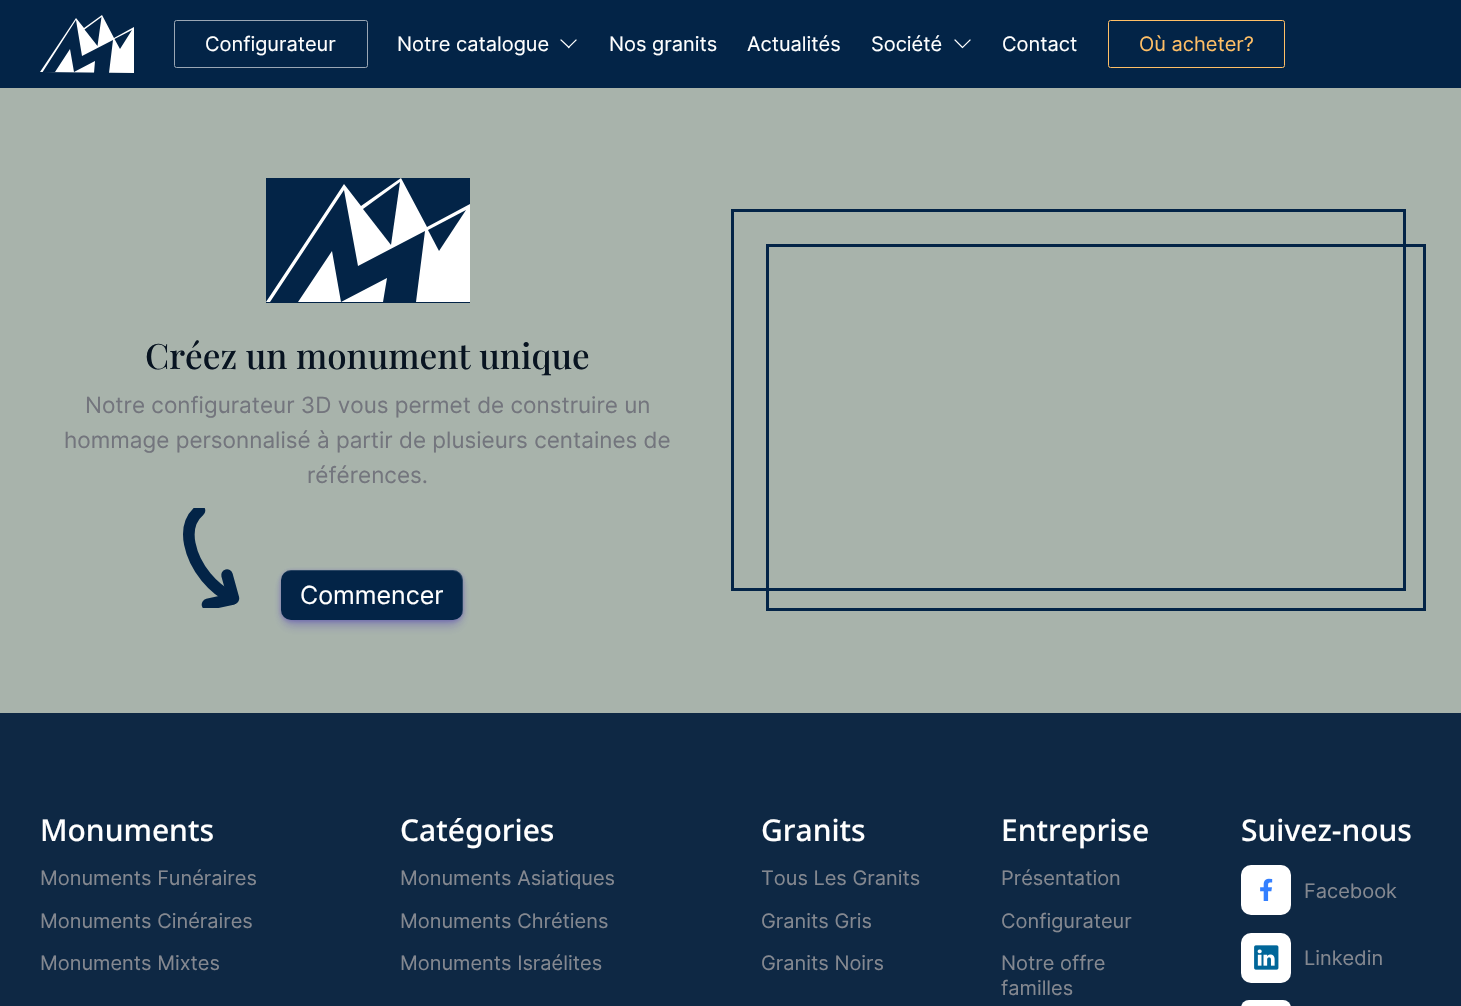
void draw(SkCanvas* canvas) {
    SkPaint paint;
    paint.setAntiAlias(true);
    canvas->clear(0xFFA8B3AB);
    paint.setColor(0xFF032447);
    canvas->drawRect(SkRect::MakeXYWH(0, 0, 1461, 88), paint);
    paint.setColor(0xFFFFFFFF);
    canvas->drawPath(SkPathBuilder().moveTo(40, 72).lineTo(134, 73).lineTo(134, 27).lineTo(114, 38).lineTo(102, 15).lineTo(84, 28).lineTo(76, 18).lineTo(40, 72).detach(), paint);
    paint.setColor(0xFF032447);
    canvas->drawPath(SkPathBuilder().moveTo(42, 73).lineTo(55, 72).lineTo(70, 49).lineTo(74, 72).lineTo(95, 61).lineTo(94, 73).lineTo(109, 73).lineTo(113, 40).lineTo(82, 56).lineTo(76, 20).lineTo(42, 73).detach(), paint);
    canvas->drawPath(SkPathBuilder().moveTo(114.5f, 39).lineTo(120, 49).lineTo(132, 30).lineTo(114.5f, 39).moveTo(84.5f, 29.5f).lineTo(101.5f, 17).lineTo(97.5f, 46).lineTo(84.5f, 29.5f).detach(), paint);
    paint.setStyle(SkPaint::kStroke_Style);
    paint.setStrokeWidth(1);
    paint.setColor(0xFF9AA7B5);
    canvas->drawRoundRect(SkRect::MakeXYWH(174.5f, 20.5f, 193, 47), 2, 2, paint);
    SkFont font1(fontMgr->matchFamilyStyle("Inter", SkFontStyle::Normal()), 20);
    font1.setSubpixel(true);
    paint.setStyle(SkPaint::kFill_Style);
    paint.setColor(0xFFFFFFFF);
    canvas->drawString("Configurateur", 205, 51, font1, paint);
    canvas->drawString("Notre catalogue", 397, 51, font1, paint);
    paint.setStyle(SkPaint::kStroke_Style);
    paint.setStrokeWidth(1.2f);
    paint.setStrokeCap(SkPaint::kSquare_Cap);
    canvas->drawPath(SkPathBuilder().moveTo(561, 40).lineTo(569, 47.5f).moveTo(576, 40).lineTo(568.5f, 47.5f).detach(), paint);
    paint.setStyle(SkPaint::kFill_Style);
    canvas->drawString("Nos granits", 609, 51, font1, paint);
    canvas->drawString("Actualités", 747, 51, font1, paint);
    canvas->drawString("Société", 871, 51, font1, paint);
    paint.setStyle(SkPaint::kStroke_Style);
    canvas->drawPath(SkPathBuilder().moveTo(955, 40).lineTo(962.5f, 47.5f).moveTo(970, 40).lineTo(962.5f, 47.5f).detach(), paint);
    paint.setStyle(SkPaint::kFill_Style);
    canvas->drawString("Contact", 1002, 51, font1, paint);
    paint.setStyle(SkPaint::kStroke_Style);
    paint.setStrokeWidth(1);
    paint.setStrokeCap(SkPaint::kButt_Cap);
    paint.setColor(0xFFFFBF66);
    canvas->drawRoundRect(SkRect::MakeXYWH(1108.5f, 20.5f, 176, 47), 2, 2, paint);
    paint.setStyle(SkPaint::kFill_Style);
    canvas->drawString("Où acheter?", 1139, 51, font1, paint);
    paint.setColor(0xFF032447);
    canvas->drawRect(SkRect::MakeXYWH(266, 178, 204, 125), paint);
    paint.setColor(0xFFFFFFFF);
    canvas->drawPath(SkPathBuilder().moveTo(266, 302).lineTo(470, 302).lineTo(470, 204).lineTo(427, 227).lineTo(401, 178).lineTo(361, 206).lineTo(344, 184).lineTo(266, 302).detach(), paint);
    paint.setColor(0xFF032447);
    canvas->drawPath(SkPathBuilder().moveTo(270, 302).lineTo(298, 302).lineTo(332, 251).lineTo(341, 302).lineTo(387, 278).lineTo(383, 302).lineTo(416, 302).lineTo(425, 231).lineTo(358, 266).lineTo(344, 190).lineTo(270, 302).detach(), paint);
    canvas->drawPath(SkPathBuilder().moveTo(428, 230).lineTo(439, 251).lineTo(466, 210).lineTo(428, 230).detach(), paint);
    canvas->drawPath(SkPathBuilder().moveTo(363, 209).lineTo(400, 182).lineTo(391, 245).lineTo(363, 209).detach(), paint);
    SkFont font2(fontMgr->matchFamilyStyle("Playfair Display", SkFontStyle(500, SkFontStyle::kNormal_Width, SkFontStyle::kUpright_Slant)), 35);
    font2.setSubpixel(true);
    paint.setColor(0xFF081421);
    canvas->drawString("Créez un monument unique", 145, 369, font2, paint);
    SkFont font3(fontMgr->matchFamilyStyle("Inter", SkFontStyle::Normal()), 22.5f);
    font3.setSubpixel(true);
    paint.setColor(0xFF73757D);
    canvas->drawString("Notre configurateur 3D vous permet de construire un", 85, 413, font3, paint);
    canvas->drawString("hommage personnalisé à partir de plusieurs centaines de", 64, 448, font3, paint);
    canvas->drawString("références.", 307, 483, font3, paint);
    canvas->save();
    canvas->clipRect(SkRect::MakeXYWH(161, 508, 100, 100));
    paint.setStyle(SkPaint::kStroke_Style);
    paint.setStrokeWidth(11.6f);
    paint.setStrokeCap(SkPaint::kRound_Cap);
    paint.setStrokeJoin(SkPaint::kRound_Join);
    paint.setColor(0xFF032447);
    canvas->drawPath(SkPathBuilder().moveTo(199.5f, 510.5f).cubicTo(179, 528, 192, 560, 206, 577).cubicTo(213, 585.5f, 222, 593, 232, 598).detach(), paint);
    canvas->restore();
    canvas->drawPath(SkPathBuilder().moveTo(233.5f, 598.5f).lineTo(227, 575).detach(), paint);
    canvas->save();
    canvas->clipRect(SkRect::MakeXYWH(161, 508, 100, 100));
    canvas->drawPath(SkPathBuilder().moveTo(232.5f, 599).lineTo(207.5f, 604.5f).detach(), paint);
    canvas->restore();
    paint.setStyle(SkPaint::kFill_Style);
    paint.setColor(0x402B10B2);
    paint.setMaskFilter(SkMaskFilter::MakeBlur(kNormal_SkBlurStyle, 6));
    canvas->drawRoundRect(SkRect::MakeXYWH(284, 580, 176, 45), 8, 8, paint);
    paint.setMaskFilter(nullptr);
    paint.setColor(0x1A2B10B2);
    paint.setMaskFilter(SkMaskFilter::MakeBlur(kNormal_SkBlurStyle, 4));
    canvas->drawRoundRect(SkRect::MakeXYWH(281, 573, 182, 50), 10, 10, paint);
    paint.setMaskFilter(nullptr);
    paint.setColor(0x402B10B2);
    paint.setMaskFilter(SkMaskFilter::MakeBlur(kNormal_SkBlurStyle, 2));
    canvas->drawRoundRect(SkRect::MakeXYWH(281, 571, 182, 50), 10, 10, paint);
    paint.setMaskFilter(nullptr);
    paint.setColor(0xFF032447);
    canvas->drawRoundRect(SkRect::MakeXYWH(281, 570, 182, 50), 10, 10, paint);
    paint.setColor(0x26FFFFFF);
    canvas->drawPath(SkPathBuilder().moveTo(291, 571).lineTo(453, 571).cubicTo(458, 571, 462, 575, 462, 581).lineTo(462, 612).lineTo(461, 616).cubicTo(462, 614, 463, 612, 463, 610).lineTo(463, 580).cubicTo(463, 574, 459, 570, 453, 570).lineTo(291, 570).cubicTo(285, 570, 281, 574, 281, 580).lineTo(281, 581).cubicTo(281, 575, 285, 571, 291, 571).close().detach(), paint);
    SkFont font4(fontMgr->matchFamilyStyle("Inter", SkFontStyle::Normal()), 25);
    font4.setSubpixel(true);
    paint.setColor(0xFFFFFFFF);
    canvas->drawString("Commencer", 300, 604, font4, paint);
    paint.setStyle(SkPaint::kStroke_Style);
    paint.setStrokeWidth(3);
    paint.setStrokeCap(SkPaint::kButt_Cap);
    paint.setStrokeJoin(SkPaint::kMiter_Join);
    paint.setColor(0xFF032447);
    canvas->drawRect(SkRect::MakeXYWH(767.5f, 245.5f, 657, 364), paint);
    canvas->drawRect(SkRect::MakeXYWH(732.5f, 210.5f, 672, 379), paint);
    paint.setStyle(SkPaint::kFill_Style);
    paint.setColor(0xFF0E2844);
    canvas->drawRect(SkRect::MakeXYWH(0, 713, 1461, 293), paint);
    SkFont font5(fontMgr->matchFamilyStyle("Noto Sans", SkFontStyle(500, SkFontStyle::kNormal_Width, SkFontStyle::kUpright_Slant)), 30);
    font5.setSubpixel(true);
    paint.setColor(0xFFFFFFFF);
    canvas->drawString("Monuments", 40, 841, font5, paint);
    paint.setColor(0xFF848890);
    canvas->drawString("Monuments Funéraires", 40, 885, font1, paint);
    canvas->drawString("Monuments Cinéraires", 40, 928, font1, paint);
    canvas->drawString("Monuments Mixtes", 40, 970, font1, paint);
    paint.setColor(0xFFFFFFFF);
    canvas->drawString("Catégories", 400, 841, font5, paint);
    paint.setColor(0xFF848890);
    canvas->drawString("Monuments Asiatiques", 400, 885, font1, paint);
    canvas->drawString("Monuments Chrétiens", 400, 928, font1, paint);
    canvas->drawString("Monuments Israélites", 400, 970, font1, paint);
    paint.setColor(0xFFFFFFFF);
    canvas->drawString("Granits", 761, 841, font5, paint);
    paint.setColor(0xFF848890);
    canvas->drawString("Tous Les Granits", 761, 885, font1, paint);
    canvas->drawString("Granits Gris", 761, 928, font1, paint);
    canvas->drawString("Granits Noirs", 761, 970, font1, paint);
    paint.setColor(0xFFFFFFFF);
    canvas->drawString("Entreprise", 1001, 841, font5, paint);
    paint.setColor(0xFF848890);
    canvas->drawString("Présentation", 1001, 885, font1, paint);
    canvas->drawString("Configurateur", 1001, 928, font1, paint);
    canvas->drawString("Notre offre", 1001, 970, font1, paint);
    canvas->drawString("familles", 1001, 995, font1, paint);
    paint.setColor(0xFFFFFFFF);
    canvas->drawString("Suivez-nous", 1241, 841, font5, paint);
    canvas->drawRoundRect(SkRect::MakeXYWH(1241, 865, 50, 50), 10, 10, paint);
    canvas->drawImageRect(SkImages::DeferredFromEncodedData(SkData::MakeFromFileName("img1.png")), SkRect::MakeXYWH(1260, 878, 13, 23), SkSamplingOptions());
    paint.setColor(0xFF848890);
    canvas->drawString("Facebook", 1304, 898, font1, paint);
    paint.setColor(0xFFFFFFFF);
    canvas->drawRoundRect(SkRect::MakeXYWH(1241, 933, 50, 50), 10, 10, paint);
    canvas->drawImageRect(SkImages::DeferredFromEncodedData(SkData::MakeFromFileName("img2.png")), SkRect::MakeXYWH(1254, 945, 25, 25), SkSamplingOptions());
    paint.setColor(0xFF848890);
    canvas->drawString("Linkedin", 1304, 965, font1, paint);
    paint.setColor(0xFFFFFFFF);
    canvas->drawRoundRect(SkRect::MakeXYWH(1241, 1000, 50, 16), 10, 10, paint);
}
